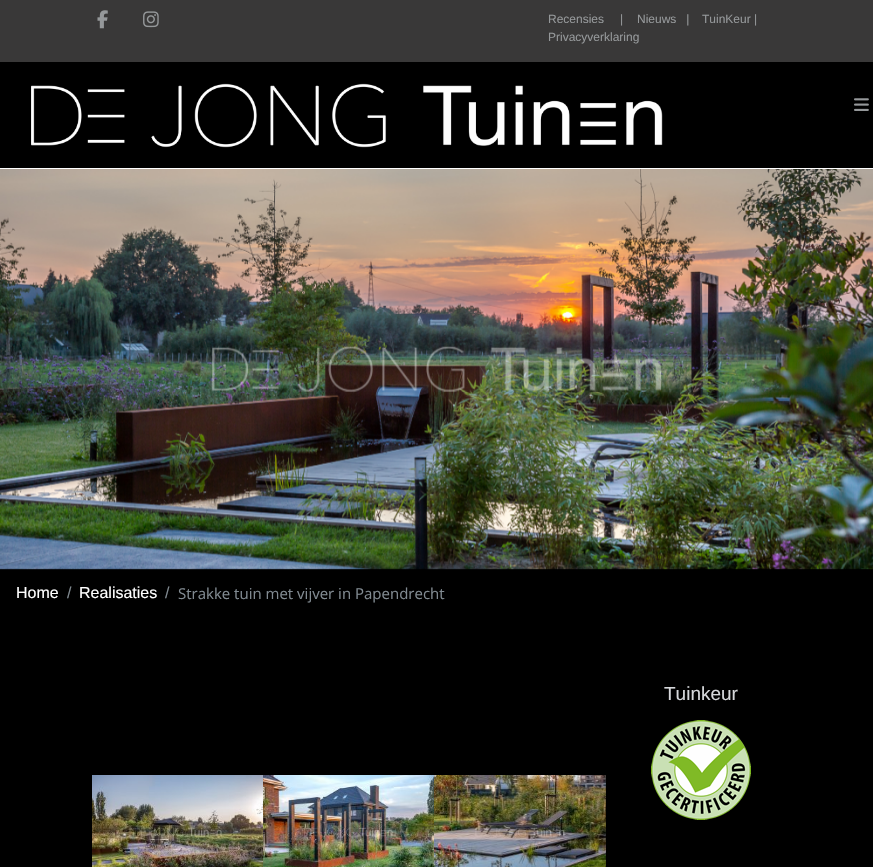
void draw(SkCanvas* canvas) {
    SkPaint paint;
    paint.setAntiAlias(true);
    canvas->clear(0xFF000000);
    paint.setColor(0xFF393838);
    canvas->drawRect(SkRect::MakeXYWH(0, 0, 873, 62), paint);
    canvas->drawImageRect(SkImages::DeferredFromEncodedData(SkData::MakeFromFileName("img1.png")), SkRect::MakeXYWH(97, 10, 11, 19), SkSamplingOptions());
    canvas->drawImageRect(SkImages::DeferredFromEncodedData(SkData::MakeFromFileName("img2.png")), SkRect::MakeXYWH(143, 11, 16, 17), SkSamplingOptions());
    SkFont font1(fontMgr->matchFamilyStyle("Liberation Sans", SkFontStyle::Normal()), 12);
    font1.setSubpixel(true);
    paint.setColor(0xFF95989A);
    canvas->drawString("Recensies", 548, 23, font1, paint);
    canvas->drawString("|", 620, 23, font1, paint);
    canvas->drawString("Nieuws   |", 637, 23, font1, paint);
    canvas->drawString("TuinKeur |", 702, 23, font1, paint);
    canvas->drawString("Privacyverklaring", 548, 41, font1, paint);
    paint.setColor(0xFFFFFFFF);
    canvas->drawRect(SkRect::MakeXYWH(0, 168, 873, 1), paint);
    canvas->drawImageRect(SkImages::DeferredFromEncodedData(SkData::MakeFromFileName("img3.png")), SkRect::MakeXYWH(31, 83, 632, 65), SkSamplingOptions());
    canvas->drawImageRect(SkImages::DeferredFromEncodedData(SkData::MakeFromFileName("img4.png")), SkRect::MakeXYWH(854, 98, 15, 13), SkSamplingOptions());
    canvas->drawImageRect(SkImages::DeferredFromEncodedData(SkData::MakeFromFileName("img5.png")), SkRect::MakeXYWH(0, 169, 873, 401), SkSamplingOptions());
    SkFont font2(fontMgr->matchFamilyStyle("Liberation Sans", SkFontStyle::Normal()), 16);
    font2.setSubpixel(true);
    canvas->drawString("Home", 16, 598, font2, paint);
    paint.setColor(0xFF818A91);
    canvas->drawString("/", 67, 598, font2, paint);
    paint.setColor(0xFFFFFFFF);
    canvas->drawString("Realisaties", 79, 598, font2, paint);
    paint.setColor(0xFF818A91);
    canvas->drawString("/", 165, 598, font2, paint);
    SkFont font3(fontMgr->matchFamilyStyle("Open Sans", SkFontStyle::Normal()), 15);
    font3.setSubpixel(true);
    canvas->drawString("Strakke tuin met vijver in Papendrecht", 178, 599, font3, paint);
    SkFont font4(fontMgr->matchFamilyStyle("Liberation Sans", SkFontStyle::Normal()), 19);
    font4.setSubpixel(true);
    paint.setColor(0xFFD6D8DB);
    canvas->drawString("Tuinkeur", 664, 700, font4, paint);
    canvas->drawImageRect(SkImages::DeferredFromEncodedData(SkData::MakeFromFileName("img6.png")), SkRect::MakeXYWH(651, 720, 100, 100), SkSamplingOptions());
    canvas->drawImageRect(SkImages::DeferredFromEncodedData(SkData::MakeFromFileName("img7.png")), SkRect::MakeXYWH(92, 775, 171, 92), SkSamplingOptions());
    canvas->drawImageRect(SkImages::DeferredFromEncodedData(SkData::MakeFromFileName("img8.png")), SkRect::MakeXYWH(263, 775, 171, 92), SkSamplingOptions());
    canvas->drawImageRect(SkImages::DeferredFromEncodedData(SkData::MakeFromFileName("img9.png")), SkRect::MakeXYWH(434, 775, 172, 92), SkSamplingOptions());
}
